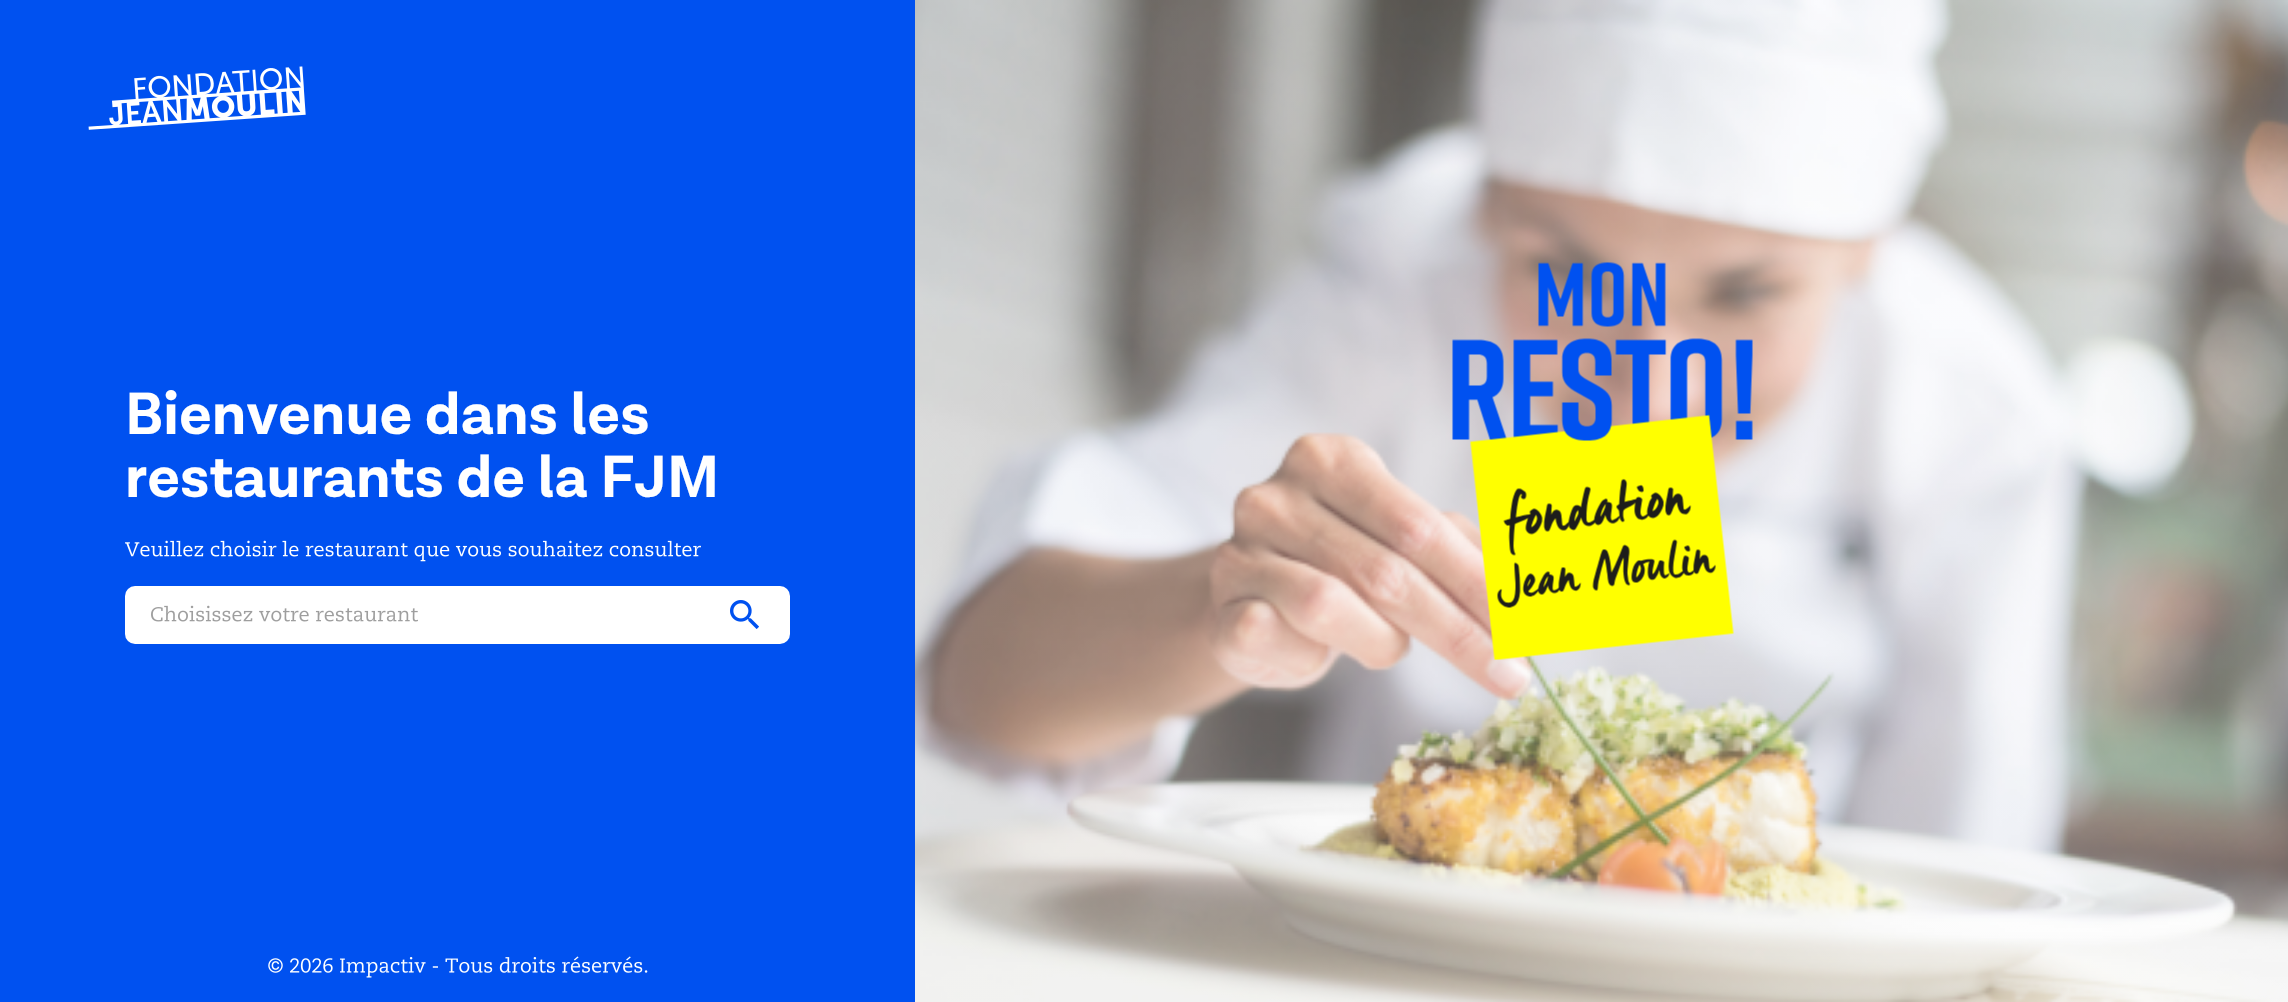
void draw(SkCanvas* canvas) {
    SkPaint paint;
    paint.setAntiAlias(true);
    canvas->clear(0xFF0051F0);
    canvas->drawImageRect(SkImages::DeferredFromEncodedData(SkData::MakeFromFileName("img1.png")), SkRect::MakeXYWH(88, 66, 218, 64), SkSamplingOptions());
    SkFont font1(fontMgr->matchFamilyStyle("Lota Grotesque", SkFontStyle::Bold()), 60);
    font1.setSubpixel(true);
    paint.setColor(0xFFFFFFFF);
    canvas->drawString("Bienvenue dans les", 125, 434, font1, paint);
    canvas->drawString("restaurants de la FJM", 125, 497, font1, paint);
    canvas->drawImageRect(SkImages::DeferredFromEncodedData(SkData::MakeFromFileName("img2.png")), SkRect::MakeXYWH(125, 540, 576, 22), SkSamplingOptions());
    canvas->drawRoundRect(SkRect::MakeXYWH(125, 586, 665, 58), 10, 10, paint);
    canvas->drawImageRect(SkImages::DeferredFromEncodedData(SkData::MakeFromFileName("img3.png")), SkRect::MakeXYWH(151, 605, 267, 17), SkSamplingOptions());
    canvas->drawImageRect(SkImages::DeferredFromEncodedData(SkData::MakeFromFileName("img4.png")), SkRect::MakeXYWH(730, 600, 29, 29), SkSamplingOptions());
    canvas->drawImageRect(SkImages::DeferredFromEncodedData(SkData::MakeFromFileName("img5.png")), SkRect::MakeXYWH(268, 956, 380, 22), SkSamplingOptions());
    canvas->drawImageRect(SkImages::DeferredFromEncodedData(SkData::MakeFromFileName("img6.png")), SkRect::MakeXYWH(915, 0, 1373, 1002), SkSamplingOptions());
    canvas->drawImageRect(SkImages::DeferredFromEncodedData(SkData::MakeFromFileName("img7.png")), SkRect::MakeXYWH(1452, 262, 301, 398), SkSamplingOptions());
}
